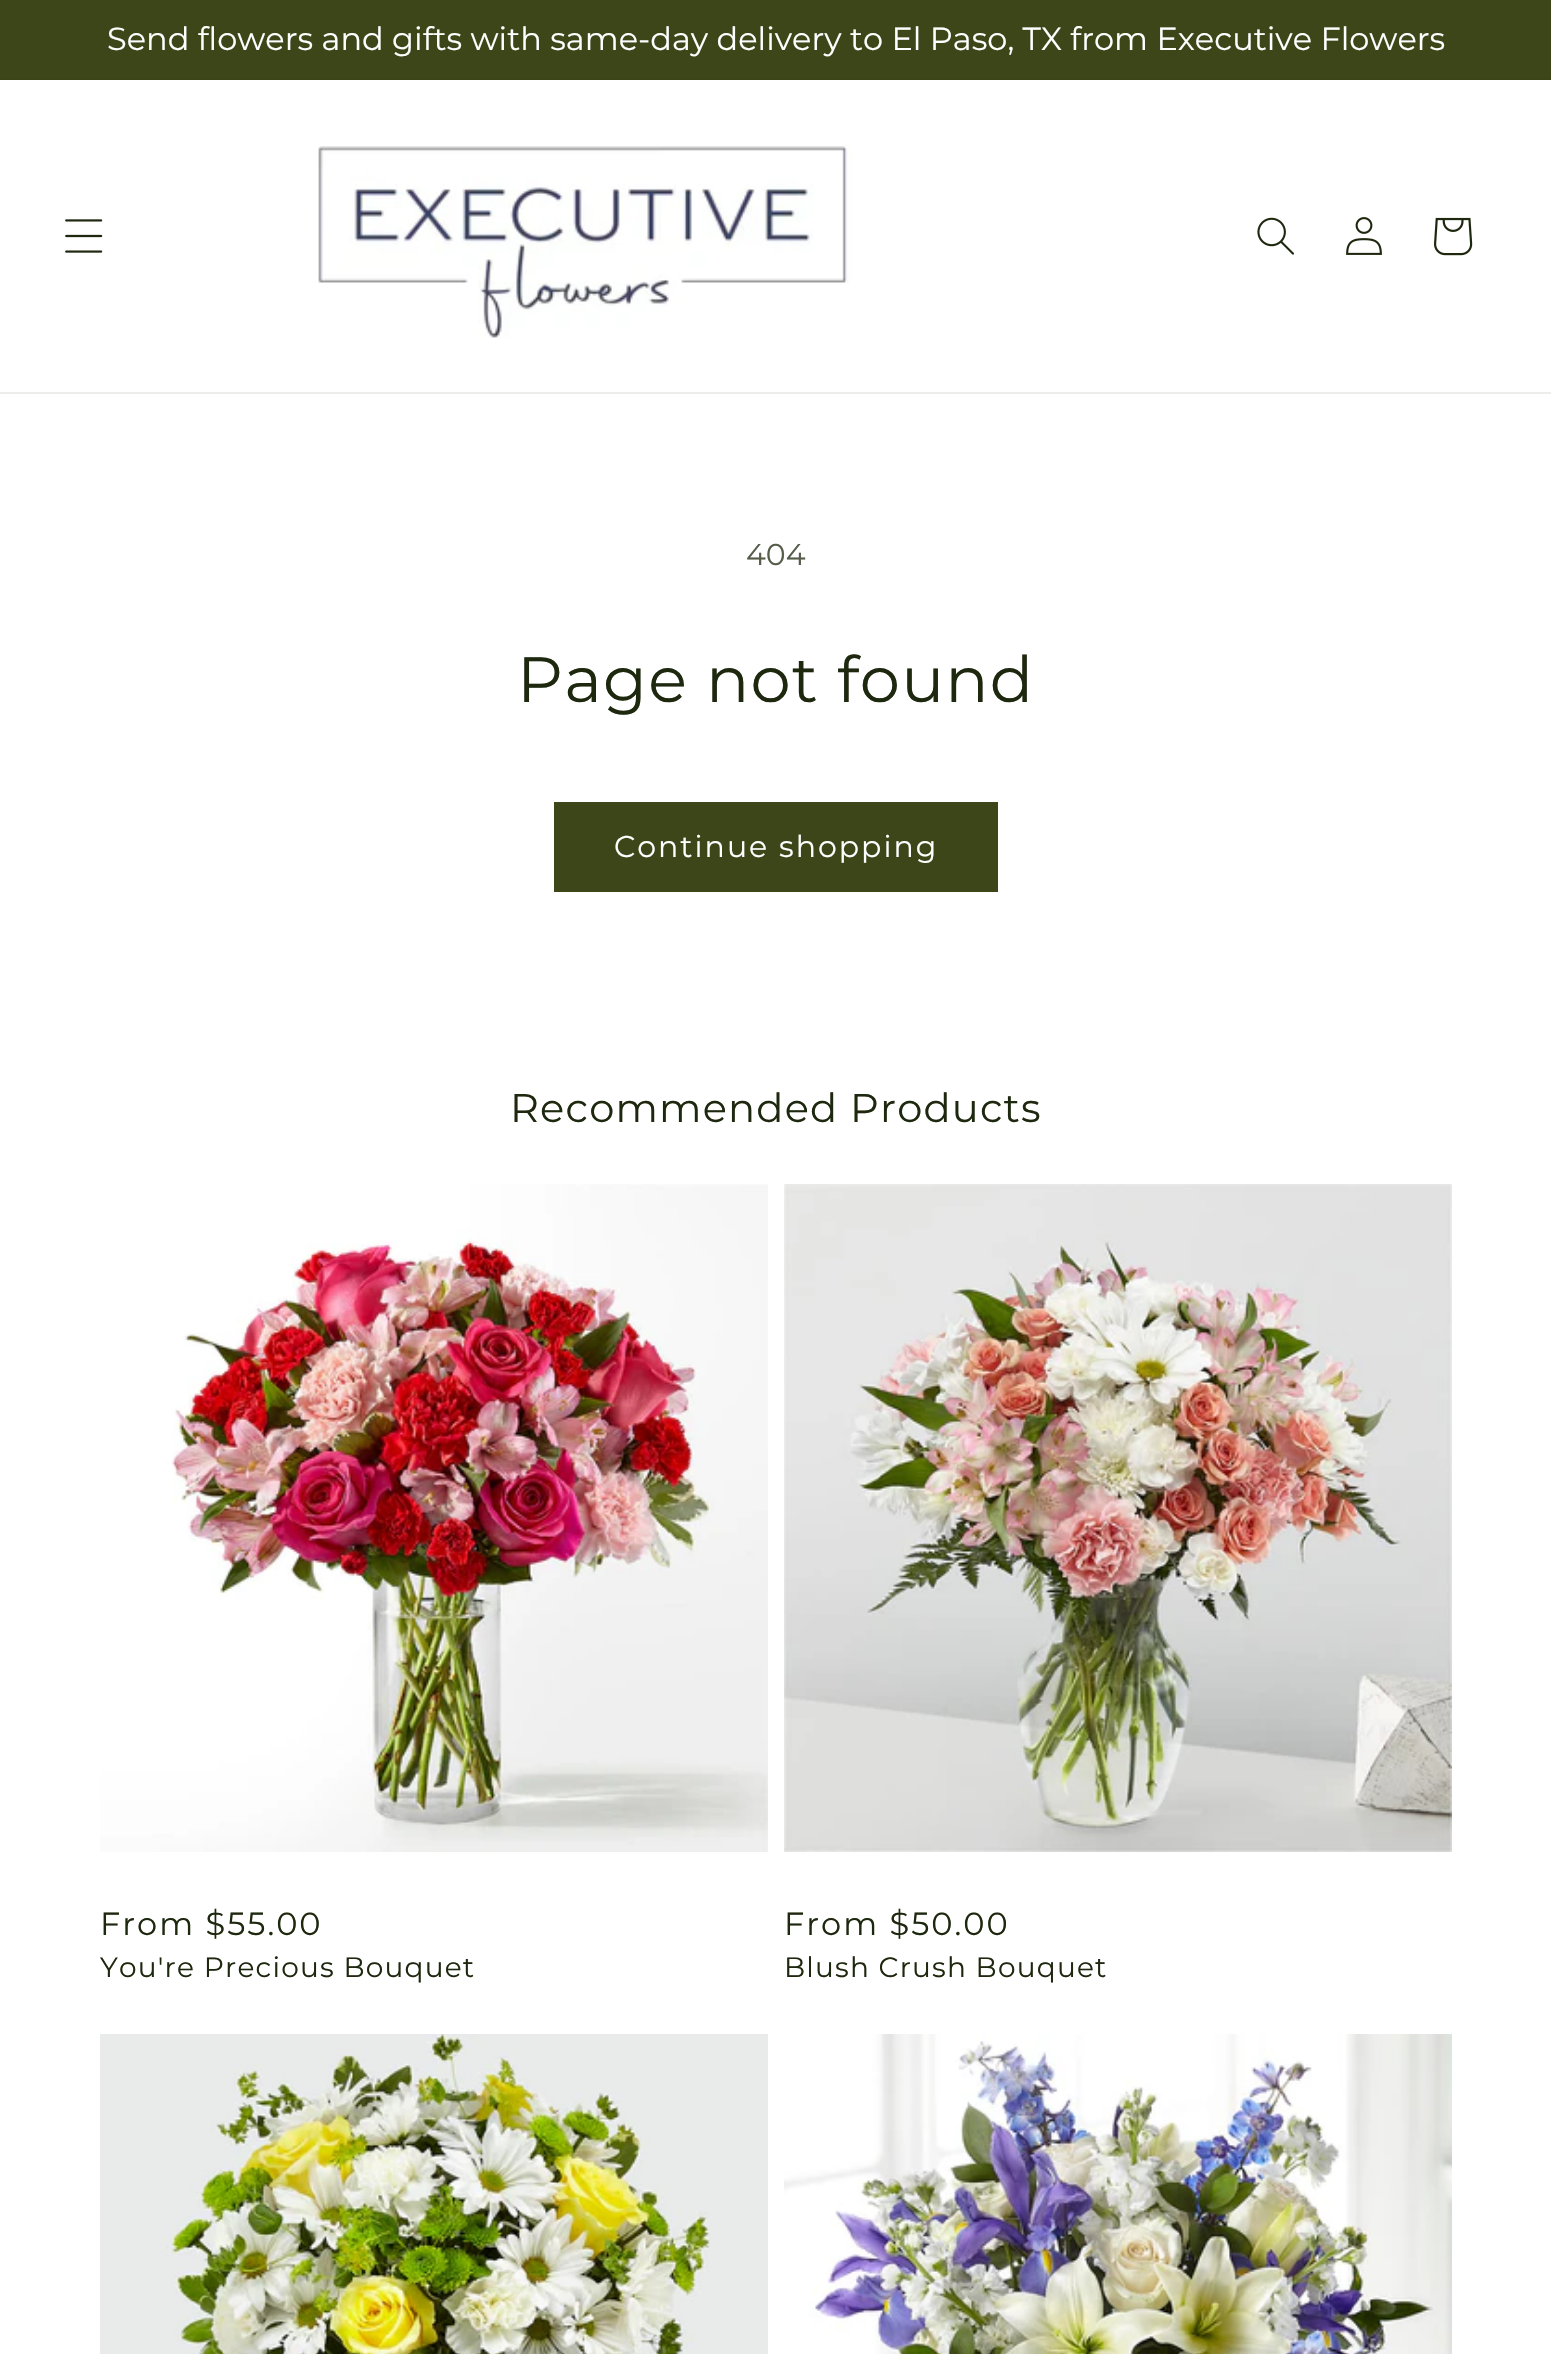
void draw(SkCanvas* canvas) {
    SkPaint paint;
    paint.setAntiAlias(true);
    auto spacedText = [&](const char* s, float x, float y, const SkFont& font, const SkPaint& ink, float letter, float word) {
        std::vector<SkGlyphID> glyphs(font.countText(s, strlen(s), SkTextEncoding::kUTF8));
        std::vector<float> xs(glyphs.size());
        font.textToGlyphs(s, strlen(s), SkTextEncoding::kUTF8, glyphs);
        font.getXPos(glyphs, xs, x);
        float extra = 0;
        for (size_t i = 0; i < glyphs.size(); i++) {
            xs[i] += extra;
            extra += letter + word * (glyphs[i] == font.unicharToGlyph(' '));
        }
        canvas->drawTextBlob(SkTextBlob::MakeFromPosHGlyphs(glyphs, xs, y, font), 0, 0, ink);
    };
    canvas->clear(0xFFFFFFFF);
    paint.setColor(0xFF3C4618);
    canvas->drawRect(SkRect::MakeXYWH(0, 0, 1551, 78), paint);
    paint.setColor(0xFF3A4417);
    canvas->drawRect(SkRect::MakeXYWH(0, 78, 1551, 2), paint);
    SkFont font1(fontMgr->matchFamilyStyle("Montserrat", SkFontStyle::Normal()), 32);
    font1.setSubpixel(true);
    paint.setColor(0xFFFFFFFF);
    canvas->drawString("Send flowers and gifts with same-day delivery to El Paso, TX from Executive Flowers", 107, 50, font1, paint);
    paint.setColor(0xFFEDEEEC);
    canvas->drawRect(SkRect::MakeXYWH(0, 392, 1551, 2), paint);
    canvas->drawImageRect(SkImages::DeferredFromEncodedData(SkData::MakeFromFileName("img1.png")), SkRect::MakeXYWH(65, 219, 38, 34), SkSamplingOptions());
    canvas->drawImageRect(SkImages::DeferredFromEncodedData(SkData::MakeFromFileName("img2.png")), SkRect::MakeXYWH(318, 146, 534, 192), SkSamplingOptions());
    canvas->drawImageRect(SkImages::DeferredFromEncodedData(SkData::MakeFromFileName("img3.png")), SkRect::MakeXYWH(1257, 217, 37, 38), SkSamplingOptions());
    canvas->drawImageRect(SkImages::DeferredFromEncodedData(SkData::MakeFromFileName("img4.png")), SkRect::MakeXYWH(1346, 217, 36, 38), SkSamplingOptions());
    canvas->drawImageRect(SkImages::DeferredFromEncodedData(SkData::MakeFromFileName("img5.png")), SkRect::MakeXYWH(1434, 217, 39, 39), SkSamplingOptions());
    SkFont font2(fontMgr->matchFamilyStyle("Montserrat", SkFontStyle::Normal()), 30);
    font2.setSubpixel(true);
    paint.setColor(0xFF565E4B);
    canvas->drawString("404", 746, 565, font2, paint);
    SkFont font3(fontMgr->matchFamilyStyle("Montserrat", SkFontStyle::Normal()), 64);
    font3.setSubpixel(true);
    paint.setColor(0xFF1E280F);
    spacedText("Page not found", 517, 702, font3, paint, 1.2f, 0);
    paint.setColor(0xFF3C4618);
    canvas->drawRect(SkRect::MakeXYWH(554, 802, 444, 90), paint);
    paint.setColor(0xFFFFFFFF);
    spacedText("Continue shopping", 614, 857, font2, paint, 2, 0);
    SkFont font4(fontMgr->matchFamilyStyle("Montserrat", SkFontStyle::Normal()), 40);
    font4.setSubpixel(true);
    paint.setColor(0xFF1E280F);
    spacedText("Recommended Products", 510, 1122, font4, paint, 1.2f, 0);
    canvas->drawImageRect(SkImages::DeferredFromEncodedData(SkData::MakeFromFileName("img6.png")), SkRect::MakeXYWH(100, 1184, 668, 668), SkSamplingOptions());
    spacedText("From $55.00", 100, 1935, font1, paint, 2, 0);
    SkFont font5(fontMgr->matchFamilyStyle("Montserrat", SkFontStyle::Normal()), 28);
    font5.setSubpixel(true);
    spacedText("You're Precious Bouquet", 100, 1977, font5, paint, 1.2f, 0);
    canvas->drawImageRect(SkImages::DeferredFromEncodedData(SkData::MakeFromFileName("img7.png")), SkRect::MakeXYWH(784, 1184, 668, 668), SkSamplingOptions());
    spacedText("From $50.00", 784, 1935, font1, paint, 2, 0);
    spacedText("Blush Crush Bouquet", 784, 1977, font5, paint, 1.2f, 0);
    canvas->drawImageRect(SkImages::DeferredFromEncodedData(SkData::MakeFromFileName("img8.png")), SkRect::MakeXYWH(100, 2034, 668, 320), SkSamplingOptions());
    canvas->drawImageRect(SkImages::DeferredFromEncodedData(SkData::MakeFromFileName("img9.png")), SkRect::MakeXYWH(784, 2034, 668, 320), SkSamplingOptions());
}
